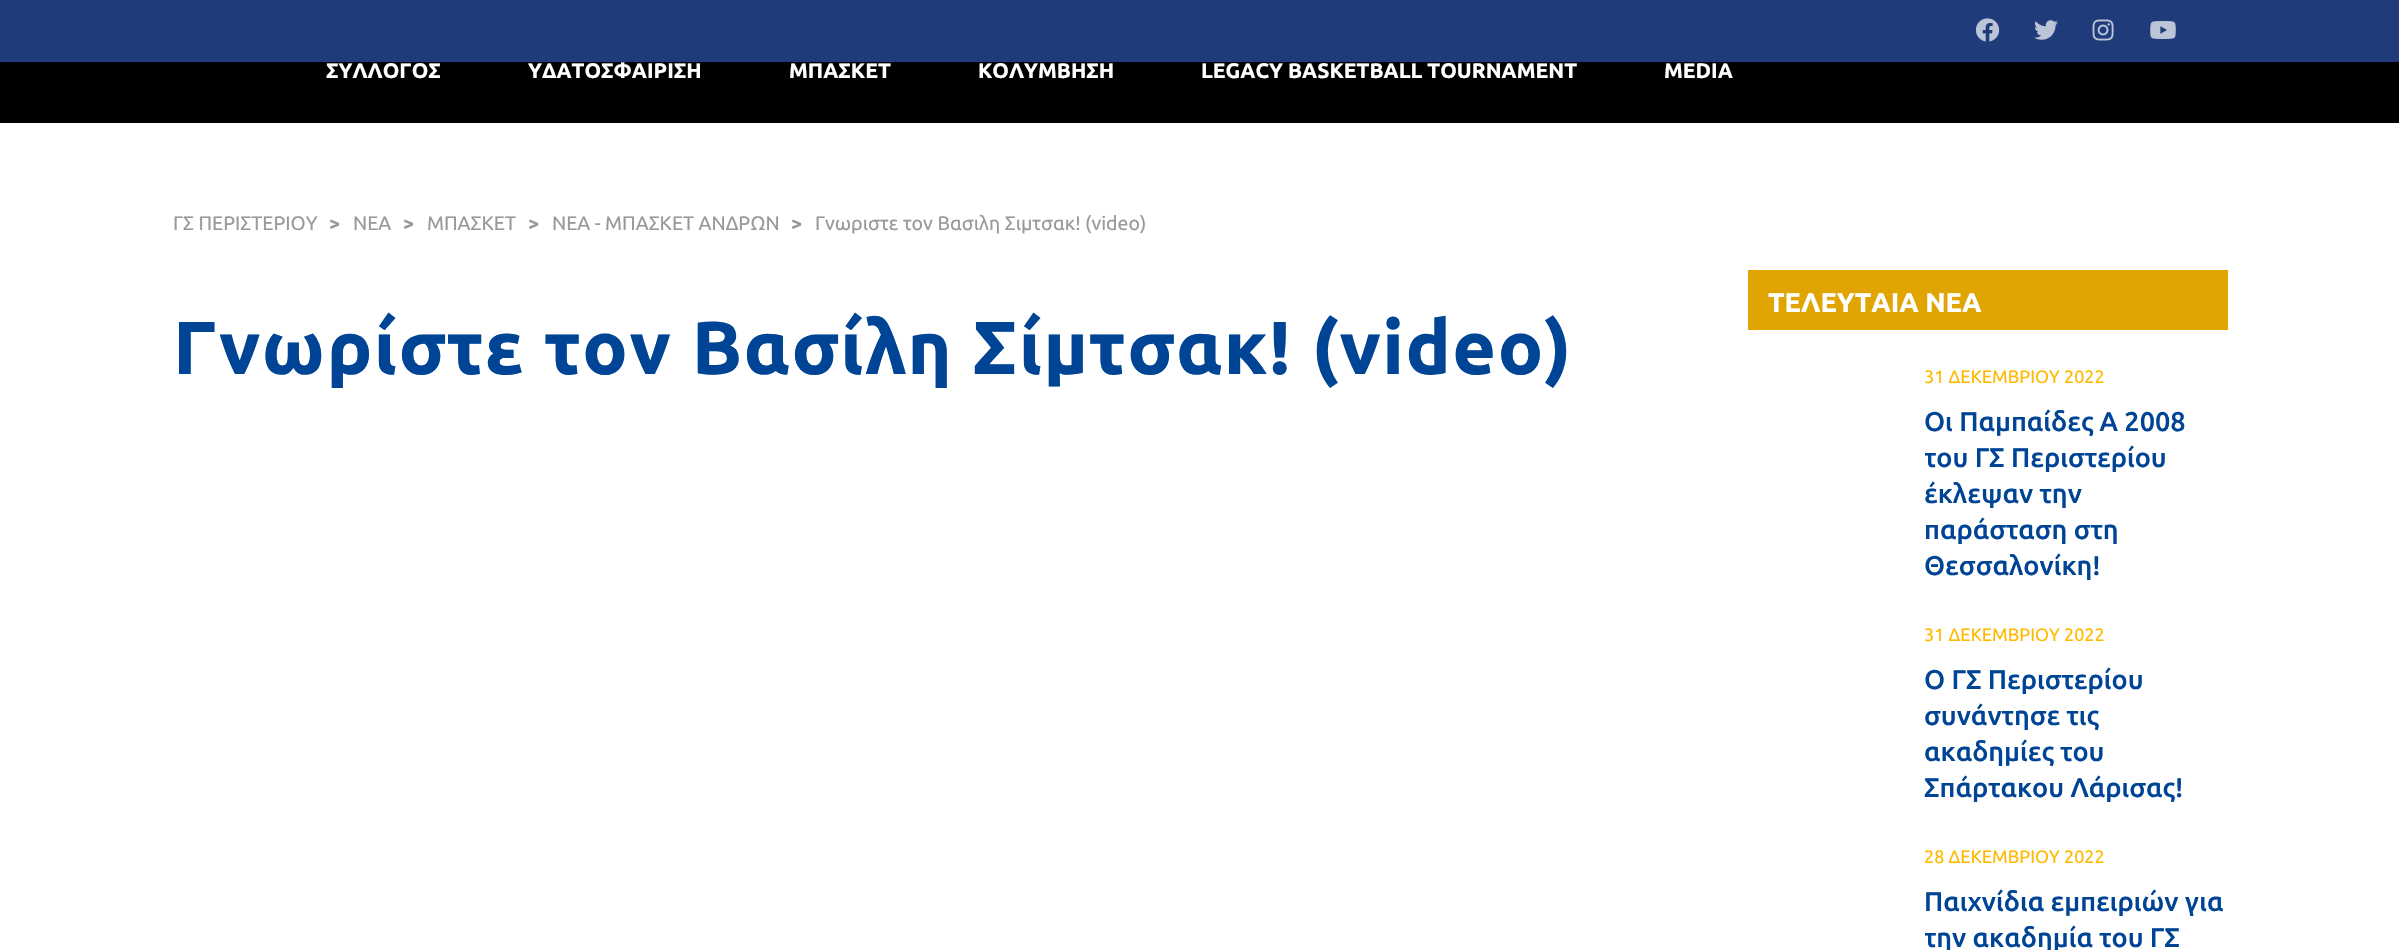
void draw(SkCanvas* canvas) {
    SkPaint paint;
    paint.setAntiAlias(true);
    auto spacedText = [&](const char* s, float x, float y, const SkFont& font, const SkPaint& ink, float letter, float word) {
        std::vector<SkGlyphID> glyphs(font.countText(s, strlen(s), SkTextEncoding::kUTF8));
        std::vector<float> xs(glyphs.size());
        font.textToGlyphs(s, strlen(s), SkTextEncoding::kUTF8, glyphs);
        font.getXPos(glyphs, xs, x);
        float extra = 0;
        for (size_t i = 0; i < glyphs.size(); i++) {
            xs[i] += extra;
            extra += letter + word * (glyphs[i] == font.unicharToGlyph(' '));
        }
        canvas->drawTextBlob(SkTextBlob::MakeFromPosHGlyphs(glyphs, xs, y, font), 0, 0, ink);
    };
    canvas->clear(0xFFFFFFFF);
    paint.setColor(0xFF1F3B79);
    canvas->drawRect(SkRect::MakeXYWH(0, 0, 2399, 62), paint);
    canvas->drawImageRect(SkImages::DeferredFromEncodedData(SkData::MakeFromFileName("img1.png")), SkRect::MakeXYWH(1975, 18, 25, 24), SkSamplingOptions());
    canvas->drawImageRect(SkImages::DeferredFromEncodedData(SkData::MakeFromFileName("img2.png")), SkRect::MakeXYWH(2034, 20, 24, 20), SkSamplingOptions());
    canvas->drawImageRect(SkImages::DeferredFromEncodedData(SkData::MakeFromFileName("img3.png")), SkRect::MakeXYWH(2092, 19, 22, 22), SkSamplingOptions());
    canvas->drawImageRect(SkImages::DeferredFromEncodedData(SkData::MakeFromFileName("img4.png")), SkRect::MakeXYWH(2150, 21, 26, 18), SkSamplingOptions());
    paint.setColor(0xFF000000);
    canvas->drawRect(SkRect::MakeXYWH(0, 62, 2399, 61), paint);
    SkFont font1(fontMgr->matchFamilyStyle("Ubuntu", SkFontStyle::Bold()), 21);
    font1.setSubpixel(true);
    paint.setColor(0xFFFFFFFF);
    canvas->drawString("ΣΥΛΛΟΓΟΣ", 326, 78, font1, paint);
    canvas->drawString("ΥΔΑΤΟΣΦΑΙΡΙΣΗ", 528, 78, font1, paint);
    canvas->drawString("ΜΠΑΣΚΕΤ", 789, 78, font1, paint);
    canvas->drawString("ΚΟΛΥΜΒΗΣΗ", 978, 78, font1, paint);
    canvas->drawString("LEGACY BASKETBALL TOURNAMENT", 1201, 78, font1, paint);
    canvas->drawString("MEDIA", 1664, 78, font1, paint);
    SkFont font2(fontMgr->matchFamilyStyle("Ubuntu", SkFontStyle::Normal()), 19.5f);
    font2.setSubpixel(true);
    paint.setColor(0xFF999999);
    canvas->drawString("ΓΣ ΠΕΡΙΣΤΕΡΙΟΥ", 173, 230, font2, paint);
    SkFont font3(fontMgr->matchFamilyStyle("Ubuntu", SkFontStyle::Bold()), 19.5f);
    font3.setSubpixel(true);
    spacedText(">", 329, 230, font3, paint, 1, 0);
    canvas->drawString("ΝΕΑ", 353, 230, font2, paint);
    spacedText(">", 403, 230, font3, paint, 1, 0);
    canvas->drawString("ΜΠΑΣΚΕΤ", 427, 230, font2, paint);
    spacedText(">", 528, 230, font3, paint, 1, 0);
    canvas->drawString("ΝΕΑ - ΜΠΑΣΚΕΤ ΑΝΔΡΩΝ", 552, 230, font2, paint);
    spacedText(">", 791, 230, font3, paint, 1, 0);
    canvas->drawString("Γνωριστε τον Βασιλη Σιμτσακ! (video)", 815, 230, font2, paint);
    SkFont font4(fontMgr->matchFamilyStyle("Ubuntu", SkFontStyle::Bold()), 75);
    font4.setSubpixel(true);
    paint.setColor(0xFF004495);
    spacedText("Γνωρίστε τον Βασίλη Σίμτσακ! (video)", 173, 374, font4, paint, 1.5f, 0);
    paint.setColor(0xFFE0A502);
    canvas->drawRect(SkRect::MakeXYWH(1748, 270, 480, 60), paint);
    SkFont font5(fontMgr->matchFamilyStyle("Ubuntu", SkFontStyle::Bold()), 27);
    font5.setSubpixel(true);
    paint.setColor(0xFFFFFFFF);
    canvas->drawString("ΤΕΛΕΥΤΑΙΑ ΝΕΑ", 1768, 312, font5, paint);
    SkFont font6(fontMgr->matchFamilyStyle("Ubuntu", SkFontStyle::Normal()), 18);
    font6.setSubpixel(true);
    paint.setColor(0xFFFFBA00);
    canvas->drawString("31 ΔΕΚΕΜΒΡΙΟΥ 2022", 1924, 383, font6, paint);
    SkFont font7(fontMgr->matchFamilyStyle("Ubuntu", SkFontStyle(500, SkFontStyle::kNormal_Width, SkFontStyle::kUpright_Slant)), 27);
    font7.setSubpixel(true);
    paint.setColor(0xFF004495);
    canvas->drawString("Οι Παμπαίδες Α 2008", 1924, 431, font7, paint);
    canvas->save();
    canvas->clipRect(SkRect::MakeXYWH(1925, 360, 303, 222));
    canvas->drawString("του ΓΣ Περιστερίου", 1924, 467, font7, paint);
    canvas->restore();
    canvas->drawString("έκλεψαν την", 1924, 503, font7, paint);
    canvas->drawString("παράσταση στη", 1924, 539, font7, paint);
    canvas->drawString("Θεσσαλονίκη!", 1924, 575, font7, paint);
    paint.setColor(0xFFFFBA00);
    canvas->drawString("31 ΔΕΚΕΜΒΡΙΟΥ 2022", 1924, 641, font6, paint);
    paint.setColor(0xFF004495);
    canvas->drawString("Ο ΓΣ Περιστερίου", 1924, 689, font7, paint);
    canvas->drawString("συνάντησε τις", 1924, 725, font7, paint);
    canvas->drawString("ακαδημίες του", 1924, 761, font7, paint);
    canvas->drawString("Σπάρτακου Λάρισας!", 1924, 797, font7, paint);
    paint.setColor(0xFFFFBA00);
    canvas->drawString("28 ΔΕΚΕΜΒΡΙΟΥ 2022", 1924, 863, font6, paint);
    paint.setColor(0xFF004495);
    canvas->drawString("Παιχνίδια εμπειριών για", 1924, 911, font7, paint);
    canvas->save();
    canvas->clipRect(SkRect::MakeXYWH(1925, 840, 303, 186));
    canvas->drawString("την ακαδημία του ΓΣ", 1924, 947, font7, paint);
    canvas->restore();
}
